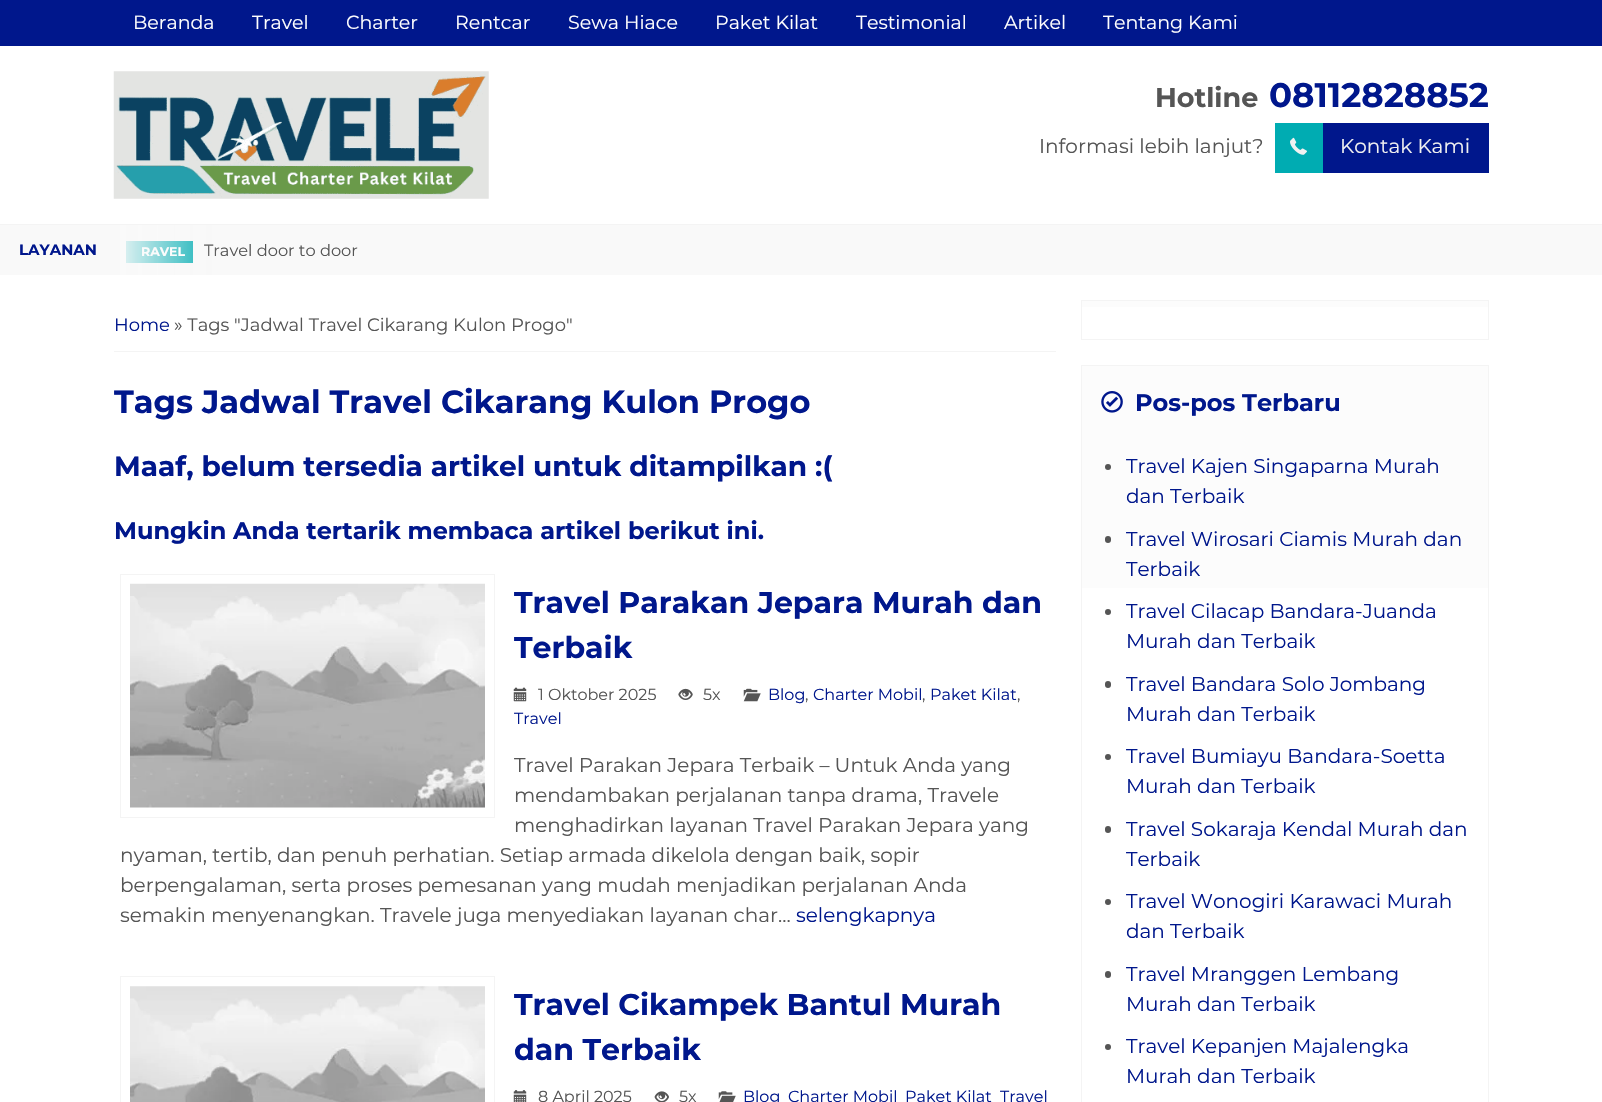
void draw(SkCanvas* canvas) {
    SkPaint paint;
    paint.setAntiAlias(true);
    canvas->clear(0xFFFFFFFF);
    paint.setColor(0xFF00178C);
    canvas->drawRect(SkRect::MakeXYWH(0, 0, 1602, 46), paint);
    SkFont font1(fontMgr->matchFamilyStyle("Montserrat", SkFontStyle::Normal()), 19);
    font1.setSubpixel(true);
    paint.setColor(0xFFFFFFFF);
    canvas->drawString("Beranda", 133, 29, font1, paint);
    canvas->drawString("Travel", 252, 29, font1, paint);
    canvas->drawString("Charter", 346, 29, font1, paint);
    canvas->drawString("Rentcar", 455, 29, font1, paint);
    canvas->drawString("Sewa Hiace", 568, 29, font1, paint);
    canvas->drawString("Paket Kilat", 715, 29, font1, paint);
    canvas->drawString("Testimonial", 856, 29, font1, paint);
    canvas->drawString("Artikel", 1004, 29, font1, paint);
    canvas->drawString("Tentang Kami", 1103, 29, font1, paint);
    paint.setColor(0xFFF4F4F4);
    canvas->drawRect(SkRect::MakeXYWH(0, 224, 1602, 1), paint);
    canvas->drawImageRect(SkImages::DeferredFromEncodedData(SkData::MakeFromFileName("img1.png")), SkRect::MakeXYWH(113, 71, 376, 128), SkSamplingOptions());
    SkFont font2(fontMgr->matchFamilyStyle("Montserrat", SkFontStyle::Bold()), 27);
    font2.setSubpixel(true);
    paint.setColor(0xFF555555);
    canvas->drawString("Hotline", 1155, 107, font2, paint);
    SkFont font3(fontMgr->matchFamilyStyle("Montserrat", SkFontStyle::Bold()), 34);
    font3.setSubpixel(true);
    paint.setColor(0xFF00178C);
    canvas->drawString("08112828852", 1269, 107, font3, paint);
    SkFont font4(fontMgr->matchFamilyStyle("Montserrat", SkFontStyle::Normal()), 20);
    font4.setSubpixel(true);
    paint.setColor(0xFF555555);
    canvas->drawString("Informasi lebih lanjut?", 1039, 153, font4, paint);
    paint.setColor(0xFF00178C);
    canvas->drawRect(SkRect::MakeXYWH(1323, 123, 166, 50), paint);
    paint.setColor(0xFF00ACB2);
    canvas->drawRect(SkRect::MakeXYWH(1275, 123, 48, 50), paint);
    canvas->drawImageRect(SkImages::DeferredFromEncodedData(SkData::MakeFromFileName("img2.png")), SkRect::MakeXYWH(1290, 137, 17, 18), SkSamplingOptions());
    paint.setColor(0xFFF1F1F1);
    canvas->drawString("Kontak Kami", 1340, 153, font4, paint);
    paint.setColor(0xFFF9F9F9);
    canvas->drawRect(SkRect::MakeXYWH(111, 225, 1491, 50), paint);
    paint.setColor(0xFF00ACB2);
    canvas->drawRect(SkRect::MakeXYWH(126, 241, 67, 22), paint);
    SkFont font5(fontMgr->matchFamilyStyle("Montserrat", SkFontStyle::Bold()), 12.5f);
    font5.setSubpixel(true);
    paint.setColor(0xFFFFFFFF);
    canvas->drawString("RAVEL", 141, 256, font5, paint);
    SkFont font6(fontMgr->matchFamilyStyle("Montserrat", SkFontStyle::Normal()), 16.25f);
    font6.setSubpixel(true);
    paint.setColor(0xFF555555);
    canvas->drawString("Travel door to door", 204, 256, font6, paint);
    {
        const SkColor colors[] = {0xFFF9F9F9, 0xFFF9F9F9, 0x00F9F9F9};
        const float stops[] = {0, 0.5f, 1};
        const SkPoint ends[] = {{0, 250}, {221, 250}};
        paint.setShader(SkGradientShader::MakeLinear(ends, colors, stops, 3, SkTileMode::kClamp));
        paint.setAlpha(255);
    }
    canvas->drawRect(SkRect::MakeXYWH(0, 225, 218, 50), paint);
    SkFont font7(fontMgr->matchFamilyStyle("Montserrat", SkFontStyle::Bold()), 15);
    font7.setSubpixel(true);
    paint.setShader(nullptr);
    paint.setColor(0xFF00178C);
    canvas->drawString("LAYANAN", 19, 255, font7, paint);
    paint.setColor(0xFFF4F4F4);
    canvas->drawRect(SkRect::MakeXYWH(114, 351, 942, 1), paint);
    SkFont font8(fontMgr->matchFamilyStyle("Montserrat", SkFontStyle::Normal()), 18);
    font8.setSubpixel(true);
    paint.setColor(0xFF00178C);
    canvas->drawString("Home", 114, 331, font8, paint);
    paint.setColor(0xFF555555);
    canvas->drawString("» Tags \"Jadwal Travel Cikarang Kulon Progo\"", 174, 331, font8, paint);
    SkFont font9(fontMgr->matchFamilyStyle("Montserrat", SkFontStyle::Bold()), 32);
    font9.setSubpixel(true);
    paint.setColor(0xFF00178C);
    canvas->drawString("Tags Jadwal Travel Cikarang Kulon Progo", 114, 413, font9, paint);
    SkFont font10(fontMgr->matchFamilyStyle("Montserrat", SkFontStyle::Bold()), 28);
    font10.setSubpixel(true);
    canvas->drawString("Maaf, belum tersedia artikel untuk ditampilkan :(", 114, 476, font10, paint);
    SkFont font11(fontMgr->matchFamilyStyle("Montserrat", SkFontStyle::Bold()), 24);
    font11.setSubpixel(true);
    canvas->drawString("Mungkin Anda tertarik membaca artikel berikut ini.", 114, 539, font11, paint);
    paint.setStyle(SkPaint::kStroke_Style);
    paint.setStrokeWidth(1);
    paint.setColor(0xFFF4F4F4);
    canvas->drawRect(SkRect::MakeXYWH(120.5f, 574.5f, 374, 243), paint);
    canvas->drawImageRect(SkImages::DeferredFromEncodedData(SkData::MakeFromFileName("img3.png")), SkRect::MakeXYWH(130, 583, 355, 225), SkSamplingOptions());
    SkFont font12(fontMgr->matchFamilyStyle("Montserrat", SkFontStyle::Bold()), 30);
    font12.setSubpixel(true);
    paint.setStyle(SkPaint::kFill_Style);
    paint.setColor(0xFF00178C);
    canvas->drawString("Travel Parakan Jepara Murah dan", 514, 613, font12, paint);
    canvas->drawString("Terbaik", 514, 658, font12, paint);
    canvas->drawImageRect(SkImages::DeferredFromEncodedData(SkData::MakeFromFileName("img4.png")), SkRect::MakeXYWH(513, 687, 14, 15), SkSamplingOptions());
    SkFont font13(fontMgr->matchFamilyStyle("Montserrat", SkFontStyle::Normal()), 16);
    font13.setSubpixel(true);
    paint.setColor(0xFF555555);
    canvas->drawString("1 Oktober 2025", 538, 700, font13, paint);
    canvas->drawImageRect(SkImages::DeferredFromEncodedData(SkData::MakeFromFileName("img5.png")), SkRect::MakeXYWH(678, 688, 15, 12), SkSamplingOptions());
    canvas->drawString("5x", 703, 700, font13, paint);
    canvas->drawImageRect(SkImages::DeferredFromEncodedData(SkData::MakeFromFileName("img6.png")), SkRect::MakeXYWH(743, 688, 18, 14), SkSamplingOptions());
    paint.setColor(0xFF00178C);
    canvas->drawString("Blog", 768, 700, font13, paint);
    paint.setColor(0xFF555555);
    canvas->drawString(",", 805, 700, font13, paint);
    paint.setColor(0xFF00178C);
    canvas->drawString("Charter Mobil", 813, 700, font13, paint);
    paint.setColor(0xFF555555);
    canvas->drawString(",", 922, 700, font13, paint);
    paint.setColor(0xFF00178C);
    canvas->drawString("Paket Kilat", 930, 700, font13, paint);
    paint.setColor(0xFF555555);
    canvas->drawString(",", 1017, 700, font13, paint);
    paint.setColor(0xFF00178C);
    canvas->drawString("Travel", 514, 724, font13, paint);
    paint.setColor(0xFF555555);
    canvas->drawString("Travel Parakan Jepara Terbaik – Untuk Anda yang", 514, 772, font4, paint);
    canvas->drawString("mendambakan perjalanan tanpa drama, Travele", 514, 802, font4, paint);
    canvas->drawString("menghadirkan layanan Travel Parakan Jepara yang", 514, 832, font4, paint);
    canvas->drawString("nyaman, tertib, dan penuh perhatian. Setiap armada dikelola dengan baik, sopir", 120, 862, font4, paint);
    canvas->drawString("berpengalaman, serta proses pemesanan yang mudah menjadikan perjalanan Anda", 120, 892, font4, paint);
    canvas->drawString("semakin menyenangkan. Travele juga menyediakan layanan char...", 120, 922, font4, paint);
    paint.setColor(0xFF00178C);
    canvas->drawString("selengkapnya", 796, 922, font4, paint);
    paint.setStyle(SkPaint::kStroke_Style);
    paint.setColor(0xFFF4F4F4);
    canvas->drawRect(SkRect::MakeXYWH(120.5f, 976.5f, 374, 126), paint);
    canvas->drawImageRect(SkImages::DeferredFromEncodedData(SkData::MakeFromFileName("img7.png")), SkRect::MakeXYWH(130, 986, 355, 116), SkSamplingOptions());
    paint.setStyle(SkPaint::kFill_Style);
    paint.setColor(0xFF00178C);
    canvas->drawString("Travel Cikampek Bantul Murah", 514, 1015, font12, paint);
    canvas->drawString("dan Terbaik", 514, 1060, font12, paint);
    canvas->drawImageRect(SkImages::DeferredFromEncodedData(SkData::MakeFromFileName("img8.png")), SkRect::MakeXYWH(513, 1090, 14, 12), SkSamplingOptions());
    paint.setColor(0xFF555555);
    canvas->drawString("8 April 2025", 538, 1102, font13, paint);
    canvas->drawImageRect(SkImages::DeferredFromEncodedData(SkData::MakeFromFileName("img9.png")), SkRect::MakeXYWH(654, 1091, 15, 11), SkSamplingOptions());
    canvas->drawString("5x", 679, 1102, font13, paint);
    canvas->drawImageRect(SkImages::DeferredFromEncodedData(SkData::MakeFromFileName("img10.png")), SkRect::MakeXYWH(718, 1091, 18, 11), SkSamplingOptions());
    paint.setColor(0xFF00178C);
    canvas->drawString("Blog", 743, 1102, font13, paint);
    canvas->drawString("Charter Mobil", 788, 1102, font13, paint);
    canvas->drawString("Paket Kilat", 905, 1102, font13, paint);
    canvas->drawString("Travel", 1000, 1102, font13, paint);
    {
        const SkColor colors[] = {0xFFFCFCFC, 0xFFFFFFFF};
        const float stops[] = {0, 1};
        const SkPoint ends[] = {{1285, 301}, {1285, 339}};
        paint.setShader(SkGradientShader::MakeLinear(ends, colors, stops, 2, SkTileMode::kClamp));
        paint.setAlpha(255);
    }
    canvas->drawRect(SkRect::MakeXYWH(1082, 301, 406, 6), paint);
    paint.setStyle(SkPaint::kStroke_Style);
    paint.setShader(nullptr);
    paint.setColor(0xFFF4F4F4);
    canvas->drawRect(SkRect::MakeXYWH(1081.5f, 300.5f, 407, 39), paint);
    paint.setStyle(SkPaint::kFill_Style);
    {
        const SkColor colors[] = {0xFFFCFCFC, 0xFFFFFFFF};
        const float stops[] = {0, 1};
        const SkPoint ends[] = {{1285, 366}, {1285, 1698}};
        paint.setShader(SkGradientShader::MakeLinear(ends, colors, stops, 2, SkTileMode::kClamp));
        paint.setAlpha(255);
    }
    canvas->drawRect(SkRect::MakeXYWH(1082, 366, 406, 222), paint);
    paint.setStyle(SkPaint::kStroke_Style);
    paint.setShader(nullptr);
    paint.setColor(0xFFF4F4F4);
    canvas->drawRect(SkRect::MakeXYWH(1081.5f, 365.5f, 407, 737), paint);
    canvas->drawImageRect(SkImages::DeferredFromEncodedData(SkData::MakeFromFileName("img11.png")), SkRect::MakeXYWH(1101, 391, 22, 22), SkSamplingOptions());
    paint.setStyle(SkPaint::kFill_Style);
    paint.setColor(0xFF00178C);
    canvas->drawString("Pos-pos Terbaru", 1135, 411, font11, paint);
    paint.setColor(0xFF555555);
    canvas->drawCircle(1108, 467, 3, paint);
    paint.setColor(0xFF00178C);
    canvas->drawString("Travel Kajen Singaparna Murah", 1126, 473, font4, paint);
    canvas->drawString("dan Terbaik", 1126, 503, font4, paint);
    paint.setColor(0xFF555555);
    canvas->drawRoundRect(SkRect::MakeXYWH(1105, 536, 6, 7), 3, 3, paint);
    paint.setColor(0xFF00178C);
    canvas->drawString("Travel Wirosari Ciamis Murah dan", 1126, 546, font4, paint);
    canvas->drawString("Terbaik", 1126, 576, font4, paint);
    paint.setColor(0xFF555555);
    canvas->drawCircle(1108, 612, 3, paint);
    paint.setColor(0xFF00178C);
    canvas->drawString("Travel Cilacap Bandara-Juanda", 1126, 618, font4, paint);
    canvas->drawString("Murah dan Terbaik", 1126, 648, font4, paint);
    paint.setColor(0xFF555555);
    canvas->drawRoundRect(SkRect::MakeXYWH(1105, 681, 6, 7), 3, 3, paint);
    paint.setColor(0xFF00178C);
    canvas->drawString("Travel Bandara Solo Jombang", 1126, 691, font4, paint);
    canvas->drawString("Murah dan Terbaik", 1126, 721, font4, paint);
    paint.setColor(0xFF555555);
    canvas->drawCircle(1108, 757, 3, paint);
    paint.setColor(0xFF00178C);
    canvas->drawString("Travel Bumiayu Bandara-Soetta", 1126, 763, font4, paint);
    canvas->drawString("Murah dan Terbaik", 1126, 793, font4, paint);
    paint.setColor(0xFF555555);
    canvas->drawRoundRect(SkRect::MakeXYWH(1105, 826, 6, 7), 3, 3, paint);
    paint.setColor(0xFF00178C);
    canvas->drawString("Travel Sokaraja Kendal Murah dan", 1126, 836, font4, paint);
    canvas->drawString("Terbaik", 1126, 866, font4, paint);
    paint.setColor(0xFF555555);
    canvas->drawCircle(1108, 902, 3, paint);
    paint.setColor(0xFF00178C);
    canvas->drawString("Travel Wonogiri Karawaci Murah", 1126, 908, font4, paint);
    canvas->drawString("dan Terbaik", 1126, 938, font4, paint);
    paint.setColor(0xFF555555);
    canvas->drawRoundRect(SkRect::MakeXYWH(1105, 971, 6, 7), 3, 3, paint);
    paint.setColor(0xFF00178C);
    canvas->drawString("Travel Mranggen Lembang", 1126, 981, font4, paint);
    canvas->drawString("Murah dan Terbaik", 1126, 1011, font4, paint);
    paint.setColor(0xFF555555);
    canvas->drawCircle(1108, 1047, 3, paint);
    paint.setColor(0xFF00178C);
    canvas->drawString("Travel Kepanjen Majalengka", 1126, 1053, font4, paint);
    canvas->drawString("Murah dan Terbaik", 1126, 1083, font4, paint);
}
